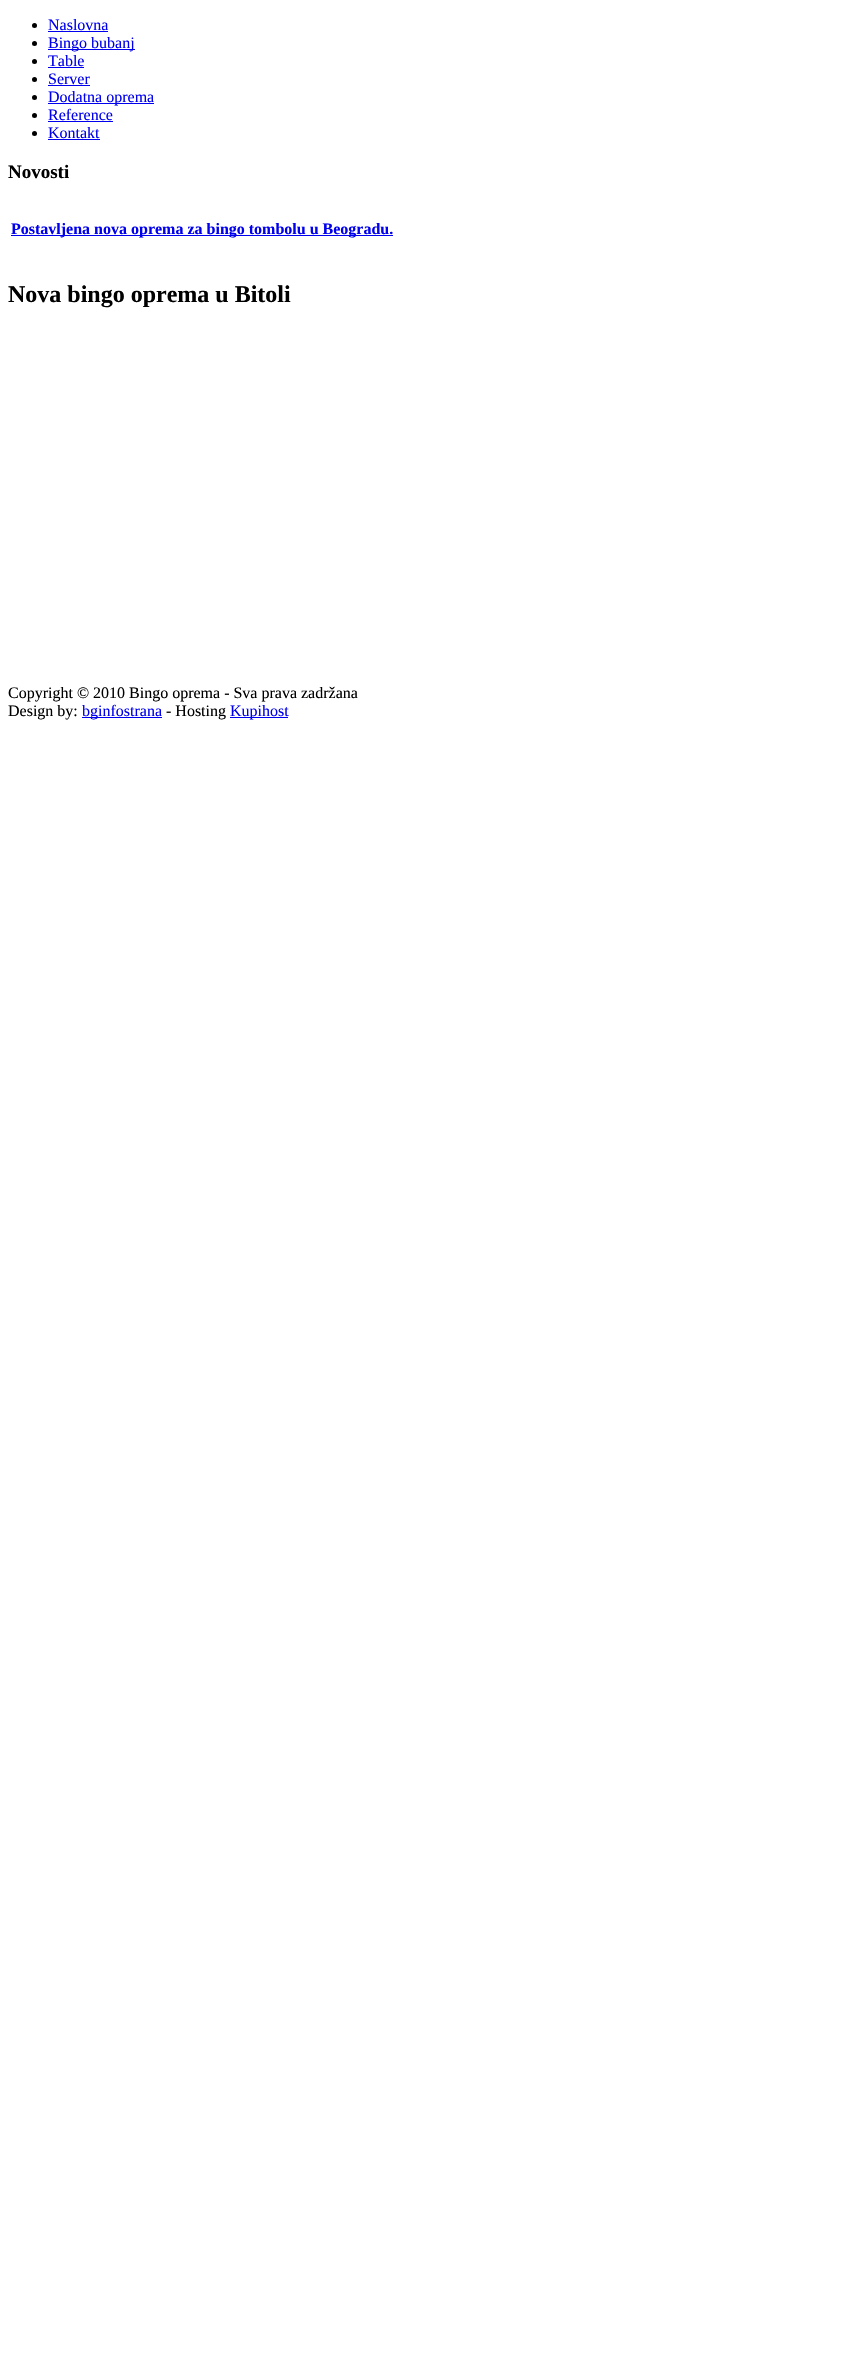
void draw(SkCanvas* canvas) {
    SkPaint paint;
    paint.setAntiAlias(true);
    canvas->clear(0xFFFFFFFF);
    paint.setColor(0xFF000000);
    canvas->drawCircle(34.5f, 25.5f, 2.5f, paint);
    SkFont font1(fontMgr->matchFamilyStyle("Liberation Serif", SkFontStyle::Normal()), 16);
    font1.setSubpixel(true);
    paint.setColor(0xFF0000EE);
    canvas->drawString("Naslovna", 48, 30, font1, paint);
    canvas->drawRect(SkRect::MakeXYWH(48, 31, 60, 1), paint);
    paint.setColor(0xFF000000);
    canvas->drawCircle(34.5f, 43.5f, 2.5f, paint);
    paint.setColor(0xFF0000EE);
    canvas->drawRect(SkRect::MakeXYWH(48, 49, 87, 1), paint);
    canvas->drawString("Bingo bubanj", 48, 48, font1, paint);
    paint.setColor(0xFF000000);
    canvas->drawCircle(34.5f, 61.5f, 2.5f, paint);
    paint.setColor(0xFF0000EE);
    canvas->drawString("Table", 48, 66, font1, paint);
    canvas->drawRect(SkRect::MakeXYWH(48, 67, 36, 1), paint);
    paint.setColor(0xFF000000);
    canvas->drawCircle(34.5f, 79.5f, 2.5f, paint);
    paint.setColor(0xFF0000EE);
    canvas->drawString("Server", 48, 84, font1, paint);
    canvas->drawRect(SkRect::MakeXYWH(48, 85, 42, 1), paint);
    paint.setColor(0xFF000000);
    canvas->drawCircle(34.5f, 97.5f, 2.5f, paint);
    paint.setColor(0xFF0000EE);
    canvas->drawRect(SkRect::MakeXYWH(48, 103, 106, 1), paint);
    canvas->drawString("Dodatna oprema", 48, 102, font1, paint);
    paint.setColor(0xFF000000);
    canvas->drawCircle(34.5f, 115.5f, 2.5f, paint);
    paint.setColor(0xFF0000EE);
    canvas->drawString("Reference", 48, 120, font1, paint);
    canvas->drawRect(SkRect::MakeXYWH(48, 121, 65, 1), paint);
    paint.setColor(0xFF000000);
    canvas->drawCircle(34.5f, 133.5f, 2.5f, paint);
    paint.setColor(0xFF0000EE);
    canvas->drawString("Kontakt", 48, 138, font1, paint);
    canvas->drawRect(SkRect::MakeXYWH(48, 139, 52, 1), paint);
    SkFont font2(fontMgr->matchFamilyStyle("Liberation Serif", SkFontStyle::Bold()), 19);
    font2.setSubpixel(true);
    paint.setColor(0xFF000000);
    canvas->drawString("Novosti", 8, 178, font2, paint);
    paint.setColor(0xFF0000EE);
    canvas->drawRect(SkRect::MakeXYWH(11, 235, 382, 1), paint);
    SkFont font3(fontMgr->matchFamilyStyle("Liberation Serif", SkFontStyle::Bold()), 16);
    font3.setSubpixel(true);
    canvas->drawString("Postavljena nova oprema za bingo tombolu u Beogradu.", 11, 234, font3, paint);
    SkFont font4(fontMgr->matchFamilyStyle("Liberation Serif", SkFontStyle::Bold()), 24);
    font4.setSubpixel(true);
    paint.setColor(0xFF000000);
    canvas->drawString("Nova bingo oprema u Bitoli", 8, 302, font4, paint);
    canvas->drawString("Copyright © 2010 Bingo oprema - Sva prava zadržana", 8, 698, font1, paint);
    canvas->drawString("Design by:", 8, 716, font1, paint);
    paint.setColor(0xFF0000EE);
    canvas->drawRect(SkRect::MakeXYWH(82, 717, 80, 1), paint);
    canvas->drawString("bginfostrana", 82, 716, font1, paint);
    paint.setColor(0xFF000000);
    canvas->drawString("- Hosting", 166, 716, font1, paint);
    paint.setColor(0xFF0000EE);
    canvas->drawRect(SkRect::MakeXYWH(230, 717, 58, 1), paint);
    canvas->drawString("Kupihost", 230, 716, font1, paint);
}
